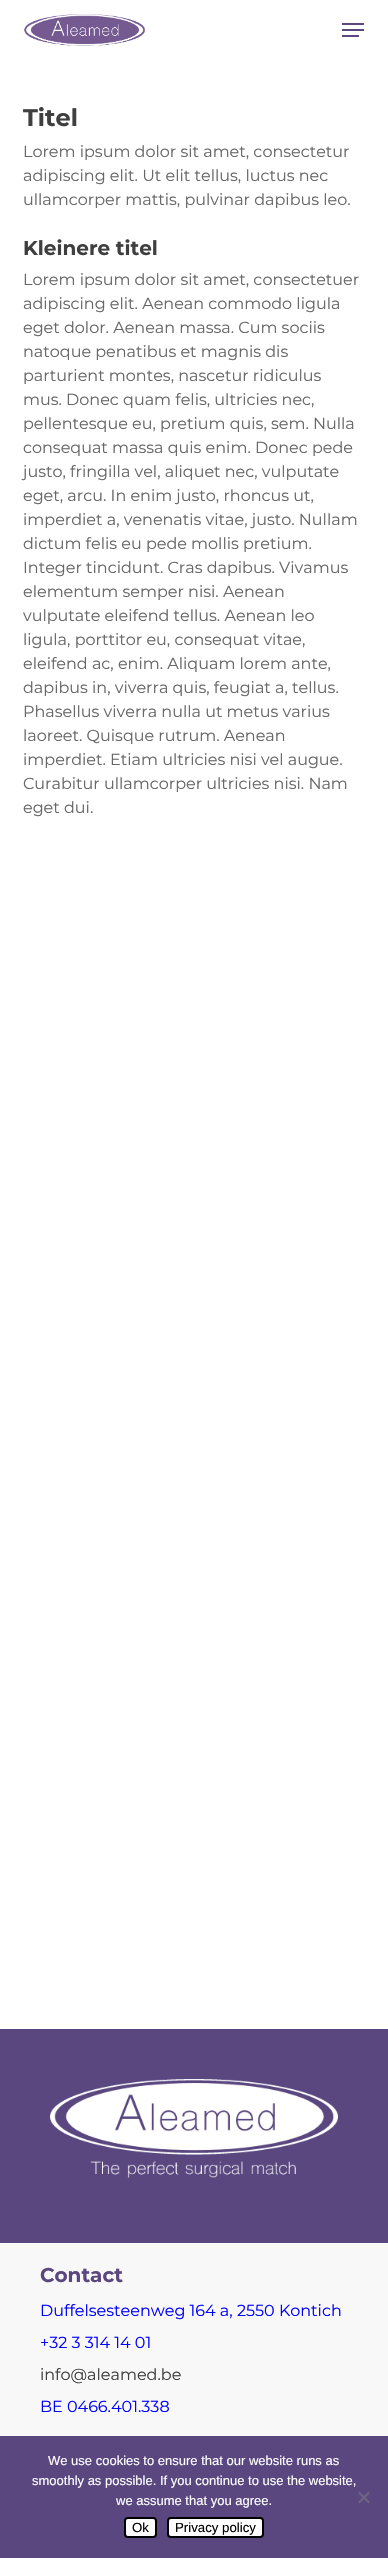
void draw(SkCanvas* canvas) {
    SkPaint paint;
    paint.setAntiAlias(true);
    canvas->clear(0xFFFFFFFF);
    canvas->drawImageRect(SkImages::DeferredFromEncodedData(SkData::MakeFromFileName("img1.png")), SkRect::MakeXYWH(24, 14, 121, 32), SkSamplingOptions());
    paint.setColor(0xFF5A477F);
    canvas->drawRect(SkRect::MakeXYWH(342, 23, 22, 2), paint);
    canvas->drawRect(SkRect::MakeXYWH(342, 35, 17, 2), paint);
    canvas->drawRect(SkRect::MakeXYWH(342, 29, 22, 2), paint);
    SkFont font1(fontMgr->matchFamilyStyle("Montserrat", SkFontStyle::Bold()), 24);
    font1.setSubpixel(true);
    paint.setColor(0xFF3F3F3F);
    canvas->drawString("Titel", 23, 126, font1, paint);
    SkFont font2(fontMgr->matchFamilyStyle("Montserrat", SkFontStyle::Normal()), 16);
    font2.setSubpixel(true);
    paint.setColor(0xFF676767);
    canvas->drawString("Lorem ipsum dolor sit amet, consectetur", 23, 157, font2, paint);
    canvas->drawString("adipiscing elit. Ut elit tellus, luctus nec", 23, 181, font2, paint);
    canvas->drawString("ullamcorper mattis, pulvinar dapibus leo.", 23, 205, font2, paint);
    SkFont font3(fontMgr->matchFamilyStyle("Montserrat", SkFontStyle::Bold()), 20);
    font3.setSubpixel(true);
    paint.setColor(0xFF3F3F3F);
    canvas->drawString("Kleinere titel", 23, 255, font3, paint);
    paint.setColor(0xFF676767);
    canvas->drawString("Lorem ipsum dolor sit amet, consectetuer", 23, 285, font2, paint);
    canvas->drawString("adipiscing elit. Aenean commodo ligula", 23, 309, font2, paint);
    canvas->drawString("eget dolor. Aenean massa. Cum sociis", 23, 333, font2, paint);
    canvas->drawString("natoque penatibus et magnis dis", 23, 357, font2, paint);
    canvas->drawString("parturient montes, nascetur ridiculus", 23, 381, font2, paint);
    canvas->drawString("mus. Donec quam felis, ultricies nec,", 23, 405, font2, paint);
    canvas->drawString("pellentesque eu, pretium quis, sem. Nulla", 23, 429, font2, paint);
    canvas->drawString("consequat massa quis enim. Donec pede", 23, 453, font2, paint);
    canvas->drawString("justo, fringilla vel, aliquet nec, vulputate", 23, 477, font2, paint);
    canvas->drawString("eget, arcu. In enim justo, rhoncus ut,", 23, 501, font2, paint);
    canvas->drawString("imperdiet a, venenatis vitae, justo. Nullam", 23, 525, font2, paint);
    canvas->drawString("dictum felis eu pede mollis pretium.", 23, 549, font2, paint);
    canvas->drawString("Integer tincidunt. Cras dapibus. Vivamus", 23, 573, font2, paint);
    canvas->drawString("elementum semper nisi. Aenean", 23, 597, font2, paint);
    canvas->drawString("vulputate eleifend tellus. Aenean leo", 23, 621, font2, paint);
    canvas->drawString("ligula, porttitor eu, consequat vitae,", 23, 645, font2, paint);
    canvas->drawString("eleifend ac, enim. Aliquam lorem ante,", 23, 669, font2, paint);
    canvas->drawString("dapibus in, viverra quis, feugiat a, tellus.", 23, 693, font2, paint);
    canvas->drawString("Phasellus viverra nulla ut metus varius", 23, 717, font2, paint);
    canvas->drawString("laoreet. Quisque rutrum. Aenean", 23, 741, font2, paint);
    canvas->drawString("imperdiet. Etiam ultricies nisi vel augue.", 23, 765, font2, paint);
    canvas->drawString("Curabitur ullamcorper ultricies nisi. Nam", 23, 789, font2, paint);
    canvas->drawString("eget dui.", 23, 813, font2, paint);
    paint.setColor(0xFFF8F8F8);
    canvas->drawRect(SkRect::MakeXYWH(0, 2243, 388, 193), paint);
    paint.setColor(0xFF5A477F);
    canvas->drawRect(SkRect::MakeXYWH(0, 2029, 388, 214), paint);
    canvas->drawImageRect(SkImages::DeferredFromEncodedData(SkData::MakeFromFileName("img2.png")), SkRect::MakeXYWH(50, 2079, 288, 99), SkSamplingOptions());
    canvas->drawString("Contact", 40, 2282, font3, paint);
    paint.setColor(0xFF0000FF);
    canvas->drawString("Duffelsesteenweg 164 a, 2550 Kontich", 40, 2316, font2, paint);
    canvas->drawString("+32 3 314 14 01", 40, 2348, font2, paint);
    paint.setColor(0xFF3F3F3F);
    canvas->drawString("info@aleamed.be", 40, 2380, font2, paint);
    paint.setColor(0xFF0000FF);
    canvas->drawString("BE 0466.401.338", 40, 2412, font2, paint);
    paint.setColor(0xFF5A477F);
    canvas->drawRect(SkRect::MakeXYWH(0, 2436, 388, 122), paint);
    SkFont font4(fontMgr->matchFamilyStyle("Liberation Sans", SkFontStyle::Normal()), 13);
    font4.setSubpixel(true);
    paint.setColor(0xFFFFFFFF);
    canvas->drawString("We use cookies to ensure that our website runs as", 48, 2465, font4, paint);
    canvas->drawString("smoothly as possible. If you continue to use the website,", 32, 2485, font4, paint);
    canvas->drawString("we assume that you agree.", 116, 2505, font4, paint);
    paint.setColor(0xFF6D6480);
    canvas->drawPath(SkPathBuilder().moveTo(368.5f, 2491.5f).lineTo(370, 2493).lineTo(359.5f, 2503.5f).lineTo(358, 2502).close().detach(), paint);
    canvas->drawPath(SkPathBuilder().moveTo(358, 2493).lineTo(359.5f, 2491.5f).lineTo(370, 2502).lineTo(368.5f, 2503.5f).close().detach(), paint);
    paint.setColor(0xFFFFFFFF);
    canvas->drawRoundRect(SkRect::MakeXYWH(125, 2518, 31, 19), 3, 3, paint);
    paint.setStyle(SkPaint::kStroke_Style);
    paint.setStrokeWidth(2);
    paint.setColor(0xFF000000);
    canvas->drawRoundRect(SkRect::MakeXYWH(125, 2518, 31, 19), 3, 3, paint);
    SkFont font5(fontMgr->matchFamilyStyle("Liberation Sans", SkFontStyle::Normal()), 13.25f);
    font5.setSubpixel(true);
    paint.setStyle(SkPaint::kFill_Style);
    canvas->drawString("Ok", 132, 2532, font5, paint);
    paint.setColor(0xFFFFFFFF);
    canvas->drawRoundRect(SkRect::MakeXYWH(168, 2518, 95, 19), 3, 3, paint);
    paint.setStyle(SkPaint::kStroke_Style);
    paint.setColor(0xFF000000);
    canvas->drawRoundRect(SkRect::MakeXYWH(168, 2518, 95, 19), 3, 3, paint);
    paint.setStyle(SkPaint::kFill_Style);
    canvas->drawString("Privacy policy", 175, 2532, font5, paint);
}
